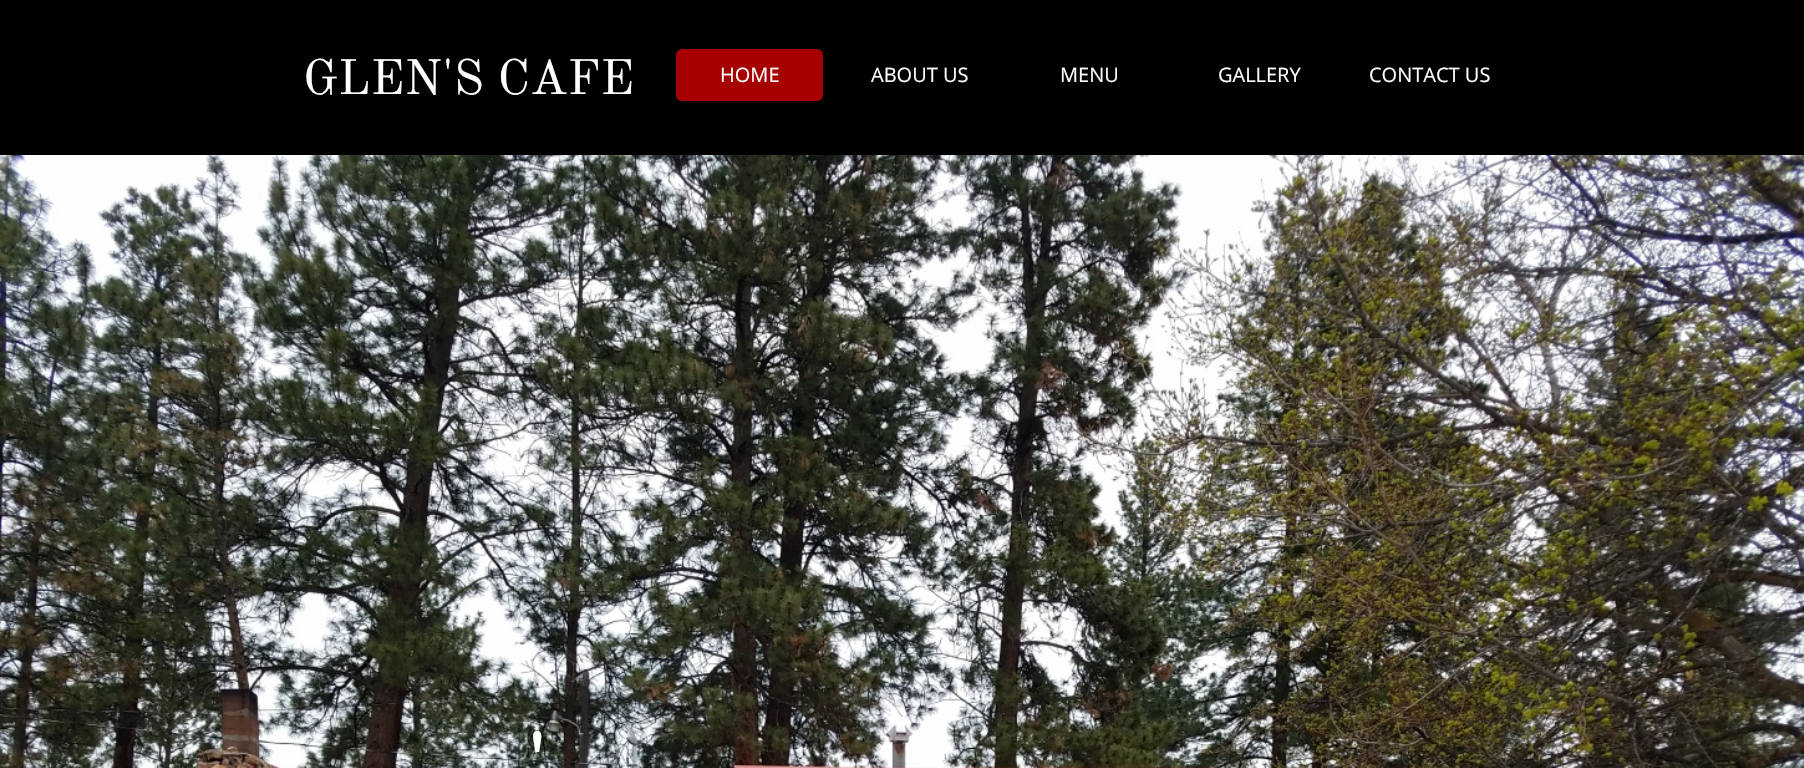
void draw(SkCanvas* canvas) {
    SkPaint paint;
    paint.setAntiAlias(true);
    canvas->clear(0xFF000000);
    SkFont font1(fontMgr->matchFamilyStyle("Old Standard TT", SkFontStyle::Normal()), 48.75f);
    font1.setSubpixel(true);
    paint.setColor(0xFFFFFFFF);
    canvas->drawString("GLEN'S CAFE", 303, 94, font1, paint);
    paint.setColor(0xFFA60000);
    canvas->drawRoundRect(SkRect::MakeXYWH(676, 49, 147, 52), 6, 6, paint);
    SkFont font2(fontMgr->matchFamilyStyle("Open Sans", SkFontStyle::Normal()), 20);
    font2.setSubpixel(true);
    paint.setColor(0xFFFFFFFF);
    canvas->drawString("HOME", 720, 82, font2, paint);
    canvas->drawString("ABOUT US", 871, 82, font2, paint);
    canvas->drawString("MENU", 1060, 82, font2, paint);
    canvas->drawString("GALLERY", 1218, 82, font2, paint);
    canvas->drawString("CONTACT US", 1369, 82, font2, paint);
    canvas->drawImageRect(SkImages::DeferredFromEncodedData(SkData::MakeFromFileName("img1.png")), SkRect::MakeXYWH(0, 155, 1804, 613), SkSamplingOptions());
    SkFont font3(fontMgr->matchFamilyStyle("Old Standard TT", SkFontStyle::Bold()), 85);
    font3.setSubpixel(true);
    canvas->drawString("'", 527, 793, font3, paint);
}
